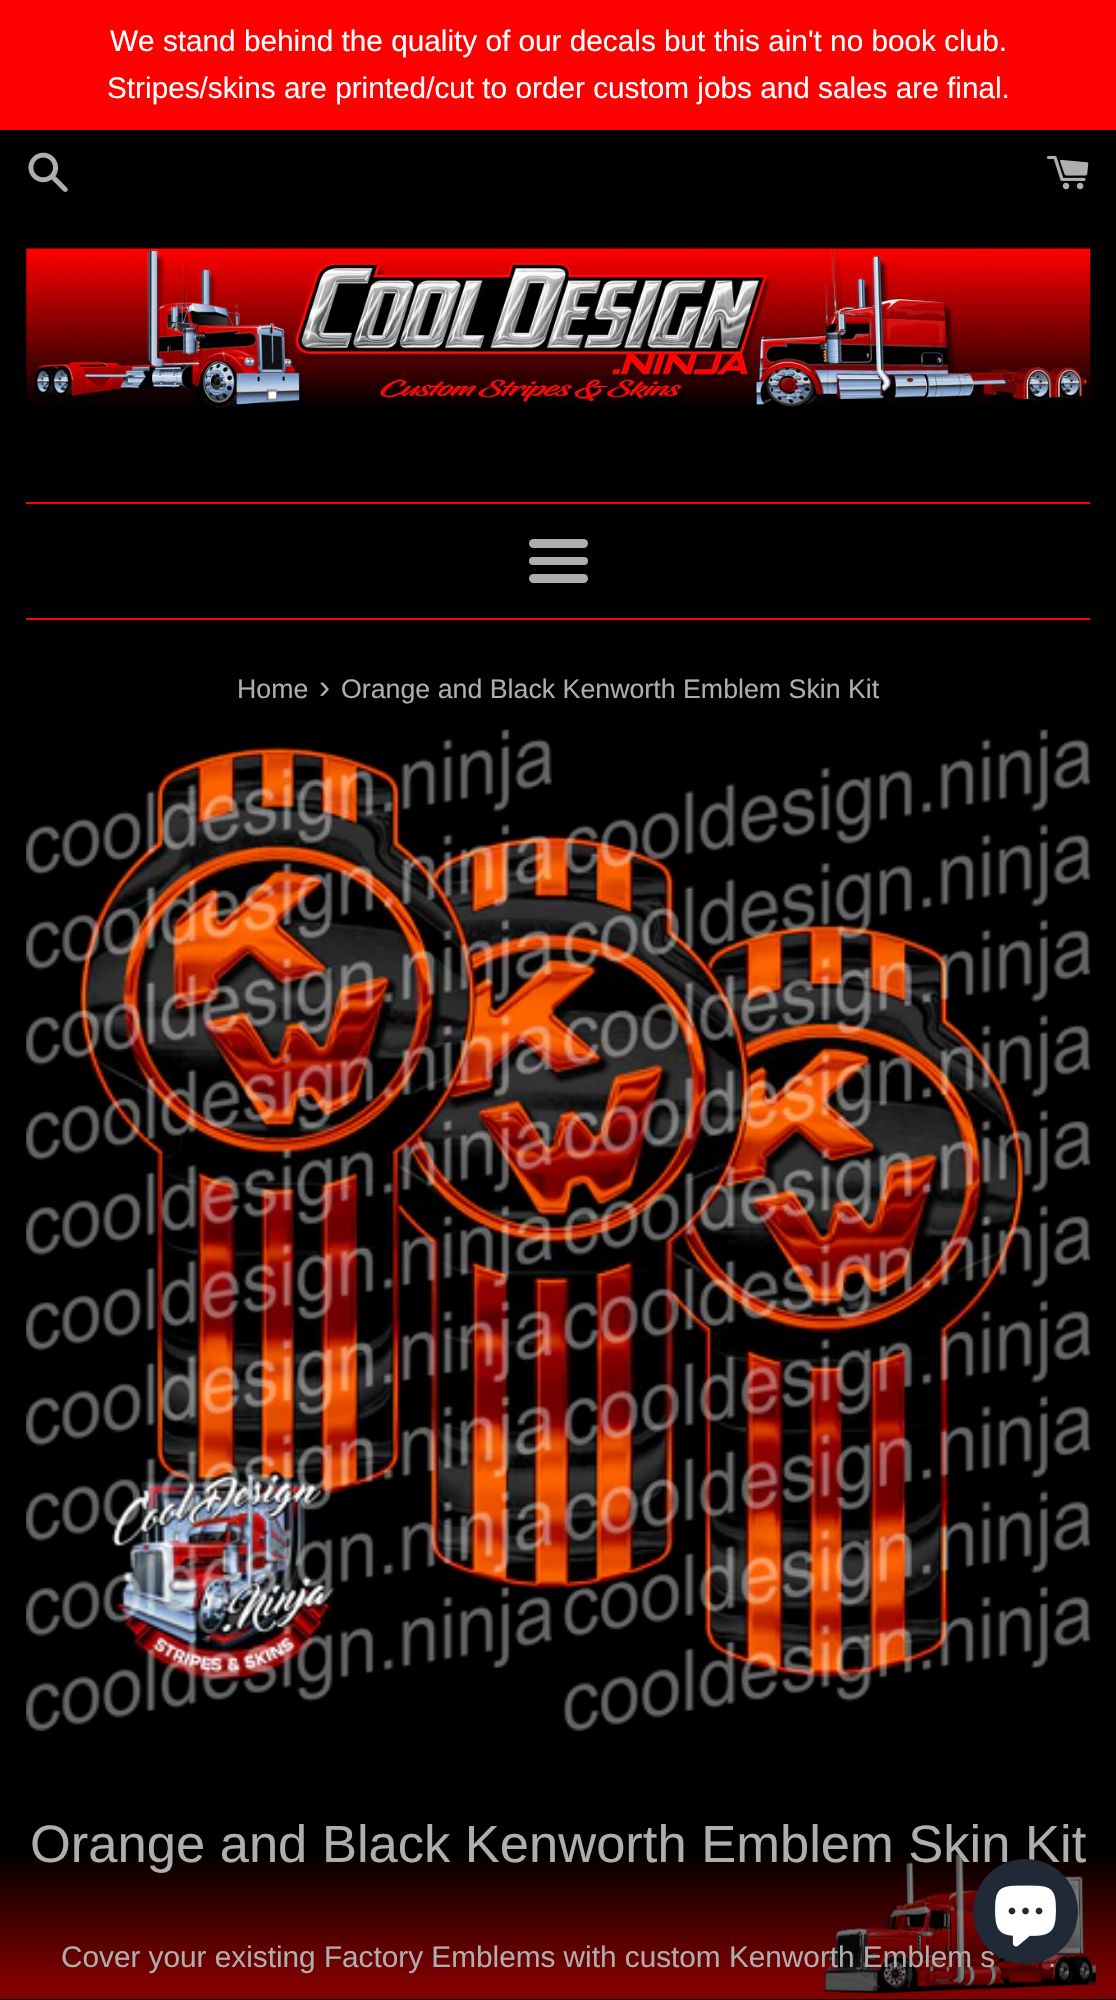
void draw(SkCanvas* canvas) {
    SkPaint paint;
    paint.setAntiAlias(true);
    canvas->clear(0xFF000000);
    paint.setColor(0xFFFF0000);
    canvas->drawRect(SkRect::MakeXYWH(0, 0, 1116, 130), paint);
    SkFont font1(fontMgr->matchFamilyStyle("Liberation Sans", SkFontStyle::Normal()), 29.75f);
    font1.setSubpixel(true);
    paint.setColor(0xFFFFFFFF);
    canvas->drawString("We stand behind the quality of our decals but this ain't no book club.", 110, 51, font1, paint);
    canvas->drawString("Stripes/skins are printed/cut to order custom jobs and sales are final.", 107, 98, font1, paint);
    canvas->drawImageRect(SkImages::DeferredFromEncodedData(SkData::MakeFromFileName("img1.png")), SkRect::MakeXYWH(28, 152, 40, 40), SkSamplingOptions());
    canvas->drawImageRect(SkImages::DeferredFromEncodedData(SkData::MakeFromFileName("img2.png")), SkRect::MakeXYWH(1047, 155, 42, 35), SkSamplingOptions());
    canvas->drawImageRect(SkImages::DeferredFromEncodedData(SkData::MakeFromFileName("img3.png")), SkRect::MakeXYWH(26, 248, 1065, 160), SkSamplingOptions());
    paint.setColor(0xFFFF0000);
    canvas->drawRect(SkRect::MakeXYWH(26, 502, 1064, 2), paint);
    paint.setColor(0xFFAEAEAE);
    canvas->drawRoundRect(SkRect::MakeXYWH(529, 539, 59, 9), 4.5f, 4.5f, paint);
    canvas->drawRoundRect(SkRect::MakeXYWH(529, 557, 59, 8), 4, 4, paint);
    canvas->drawRoundRect(SkRect::MakeXYWH(529, 574, 59, 9), 4.5f, 4.5f, paint);
    paint.setColor(0xFFFF0000);
    canvas->drawRect(SkRect::MakeXYWH(26, 618, 1064, 2), paint);
    SkFont font2(fontMgr->matchFamilyStyle("Liberation Sans", SkFontStyle::Normal()), 26.75f);
    font2.setSubpixel(true);
    paint.setColor(0xFFAEAEAE);
    canvas->drawString("Home", 237, 698, font2, paint);
    SkFont font3(fontMgr->matchFamilyStyle("Liberation Sans", SkFontStyle::Normal()), 33);
    font3.setSubpixel(true);
    canvas->drawString("›", 319, 698, font3, paint);
    canvas->drawString("Orange and Black Kenworth Emblem Skin Kit", 341, 698, font2, paint);
    canvas->drawImageRect(SkImages::DeferredFromEncodedData(SkData::MakeFromFileName("img4.png")), SkRect::MakeXYWH(26, 729, 1064, 1002), SkSamplingOptions());
    canvas->drawImageRect(SkImages::DeferredFromEncodedData(SkData::MakeFromFileName("img5.png")), SkRect::MakeXYWH(0, 1853, 1116, 146), SkSamplingOptions());
    SkFont font4(fontMgr->matchFamilyStyle("Liberation Sans", SkFontStyle::Normal()), 52.5f);
    font4.setSubpixel(true);
    canvas->drawString("Orange and Black Kenworth Emblem Skin Kit", 30, 1862, font4, paint);
    canvas->drawString("Cover your existing Factory Emblems with custom Kenworth Emblem s", 61, 1967, font1, paint);
    canvas->drawString(".", 1048, 1967, font1, paint);
    paint.setColor(0xFF202A36);
    canvas->drawCircle(1025.5f, 1911.5f, 52.5f, paint);
    canvas->drawImageRect(SkImages::DeferredFromEncodedData(SkData::MakeFromFileName("img6.png")), SkRect::MakeXYWH(995, 1885, 61, 62), SkSamplingOptions());
}
